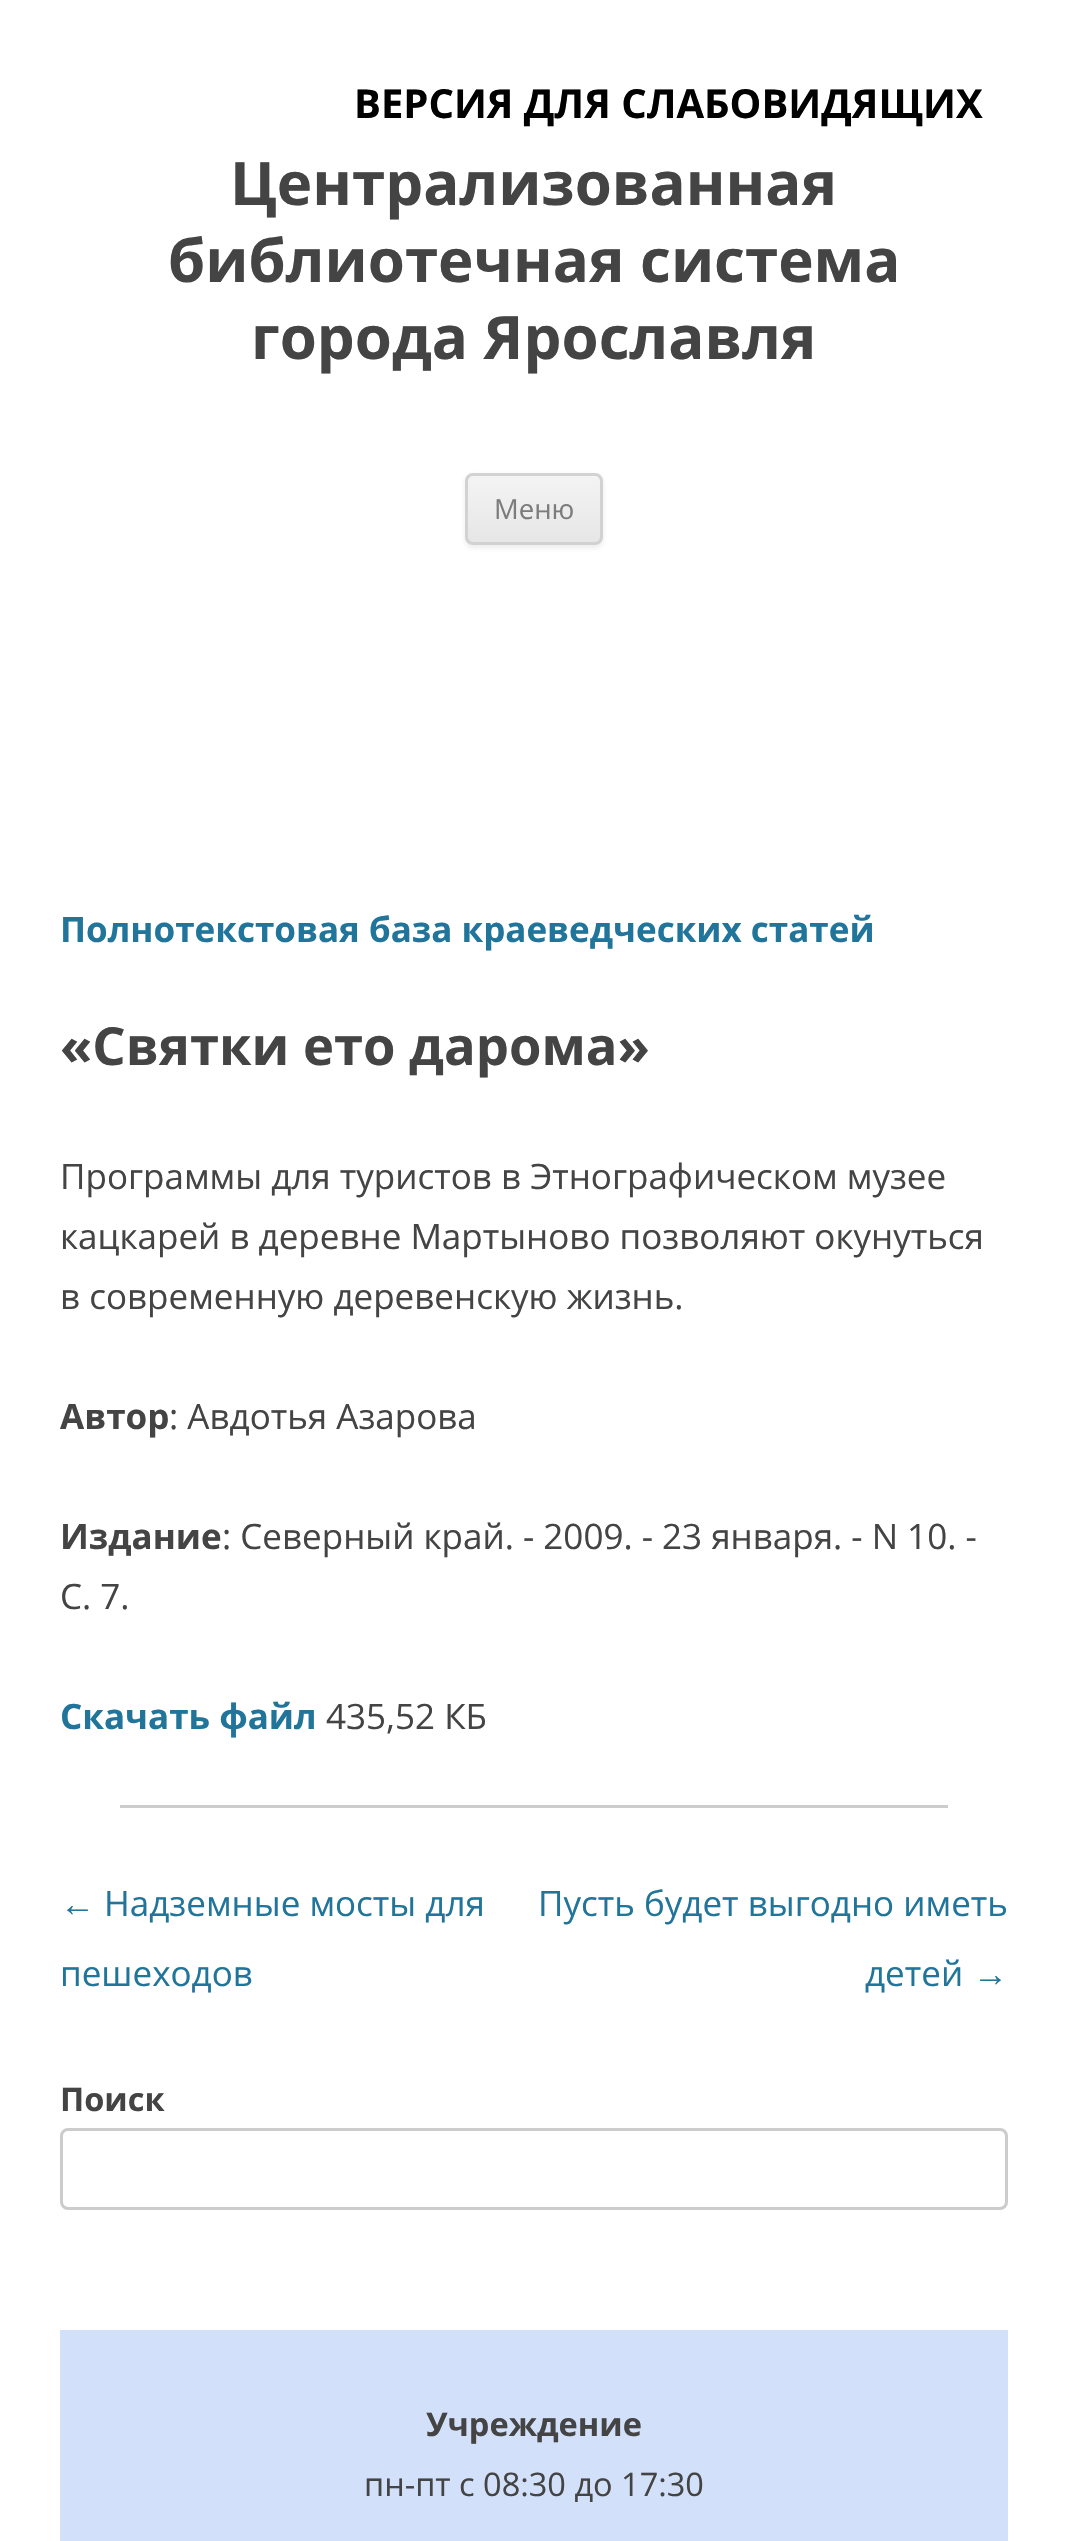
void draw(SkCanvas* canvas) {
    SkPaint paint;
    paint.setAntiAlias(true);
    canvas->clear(0xFFFFFFFF);
    SkFont font1(fontMgr->matchFamilyStyle("Open Sans", SkFontStyle::Bold()), 40);
    font1.setSubpixel(true);
    paint.setColor(0xFF000000);
    canvas->drawString("ВЕРСИЯ ДЛЯ СЛАБОВИДЯЩИХ", 354, 118, font1, paint);
    SkFont font2(fontMgr->matchFamilyStyle("Open Sans", SkFontStyle::Bold()), 60);
    font2.setSubpixel(true);
    paint.setColor(0xFF444444);
    canvas->drawString("Централизованная", 230, 205, font2, paint);
    canvas->drawString("библиотечная система", 168, 282, font2, paint);
    canvas->drawString("города Ярославля", 251, 359, font2, paint);
    paint.setColor(0x1A404040);
    paint.setMaskFilter(SkMaskFilter::MakeBlur(kNormal_SkBlurStyle, 2.5f));
    canvas->drawRoundRect(SkRect::MakeXYWH(465, 475, 138, 73), 8, 8, paint);
    paint.setMaskFilter(nullptr);
    canvas->save();
    canvas->clipPath(SkPathBuilder().moveTo(473, 473).lineTo(595, 473).cubicTo(599.5f, 473, 603, 476.5f, 603, 481).lineTo(603, 537).cubicTo(603, 541.5f, 599.5f, 545, 595, 545).lineTo(473, 545).cubicTo(468.5f, 545, 465, 541.5f, 465, 537).lineTo(465, 481).cubicTo(465, 476.5f, 468.5f, 473, 473, 473).close().detach(), true);
    {
        const SkColor colors[] = {0xFFF4F4F4, 0xFFE6E6E6};
        const float stops[] = {0, 1};
        const SkPoint ends[] = {{534, 475}, {534, 543}};
        paint.setShader(SkGradientShader::MakeLinear(ends, colors, stops, 2, SkTileMode::kClamp));
        paint.setAlpha(255);
    }
    canvas->drawRect(SkRect::MakeXYWH(465, 475, 138, 68), paint);
    canvas->restore();
    paint.setStyle(SkPaint::kStroke_Style);
    paint.setStrokeWidth(3);
    paint.setShader(nullptr);
    paint.setColor(0xFFD2D2D2);
    canvas->drawRoundRect(SkRect::MakeXYWH(466.5f, 474.5f, 135, 69), 6.5f, 6.5f, paint);
    SkFont font3(fontMgr->matchFamilyStyle("Open Sans", SkFontStyle::Normal()), 27.5f);
    font3.setSubpixel(true);
    paint.setStyle(SkPaint::kFill_Style);
    paint.setColor(0xFF7C7C7C);
    canvas->drawString("Меню", 494, 519, font3, paint);
    SkFont font4(fontMgr->matchFamilyStyle("Open Sans", SkFontStyle::Bold()), 35);
    font4.setSubpixel(true);
    paint.setColor(0xFF21759B);
    canvas->drawString("Полнотекстовая база краеведческих статей", 60, 942, font4, paint);
    SkFont font5(fontMgr->matchFamilyStyle("Open Sans", SkFontStyle::Bold()), 52.5f);
    font5.setSubpixel(true);
    paint.setColor(0xFF444444);
    canvas->drawString("«Святки ето дарома»", 60, 1065, font5, paint);
    SkFont font6(fontMgr->matchFamilyStyle("Open Sans", SkFontStyle::Normal()), 35);
    font6.setSubpixel(true);
    canvas->drawString("Программы для туристов в Этнографическом музее", 60, 1189, font6, paint);
    canvas->drawString("кацкарей в деревне Мартыново позволяют окунуться", 60, 1249, font6, paint);
    canvas->drawString("в современную деревенскую жизнь.", 60, 1309, font6, paint);
    canvas->drawString("Автор", 60, 1429, font4, paint);
    canvas->drawString(": Авдотья Азарова", 169, 1429, font6, paint);
    canvas->drawString("Издание", 60, 1549, font4, paint);
    canvas->drawString(": Северный край. - 2009. - 23 января. - N 10. -", 222, 1549, font6, paint);
    canvas->drawString("С. 7.", 60, 1609, font6, paint);
    paint.setColor(0xFF21759B);
    canvas->drawString("Скачать файл", 60, 1729, font4, paint);
    paint.setColor(0xFF444444);
    canvas->drawString("435,52 КБ", 326, 1729, font6, paint);
    paint.setColor(0xFFCCCCCC);
    canvas->drawRect(SkRect::MakeXYWH(120, 1805, 828, 3), paint);
    SkFont font7(fontMgr->matchFamilyStyle("Liberation Sans", SkFontStyle::Normal()), 35);
    font7.setSubpixel(true);
    paint.setColor(0xFF21759B);
    canvas->drawString("←", 60, 1916, font7, paint);
    canvas->drawString("Надземные мосты для", 104, 1916, font6, paint);
    canvas->drawString("пешеходов", 60, 1986, font6, paint);
    canvas->drawString("Пусть будет выгодно иметь", 538, 1916, font6, paint);
    canvas->drawString("детей", 865, 1986, font6, paint);
    canvas->drawString("→", 973, 1986, font7, paint);
    SkFont font8(fontMgr->matchFamilyStyle("Open Sans", SkFontStyle::Bold()), 32.5f);
    font8.setSubpixel(true);
    paint.setColor(0xFF444444);
    canvas->drawString("Поиск", 60, 2111, font8, paint);
    paint.setStyle(SkPaint::kStroke_Style);
    paint.setColor(0xFFCCCCCC);
    canvas->drawRoundRect(SkRect::MakeXYWH(61.5f, 2129.5f, 945, 79), 6.5f, 6.5f, paint);
    paint.setStyle(SkPaint::kFill_Style);
    paint.setColor(0xFFD2E0F9);
    canvas->drawRect(SkRect::MakeXYWH(60, 2330, 948, 211), paint);
    paint.setColor(0xFF444444);
    canvas->drawString("Учреждение", 426, 2436, font8, paint);
    SkFont font9(fontMgr->matchFamilyStyle("Open Sans", SkFontStyle::Normal()), 32.5f);
    font9.setSubpixel(true);
    canvas->drawString("пн-пт с 08:30 до 17:30", 364, 2496, font9, paint);
}
